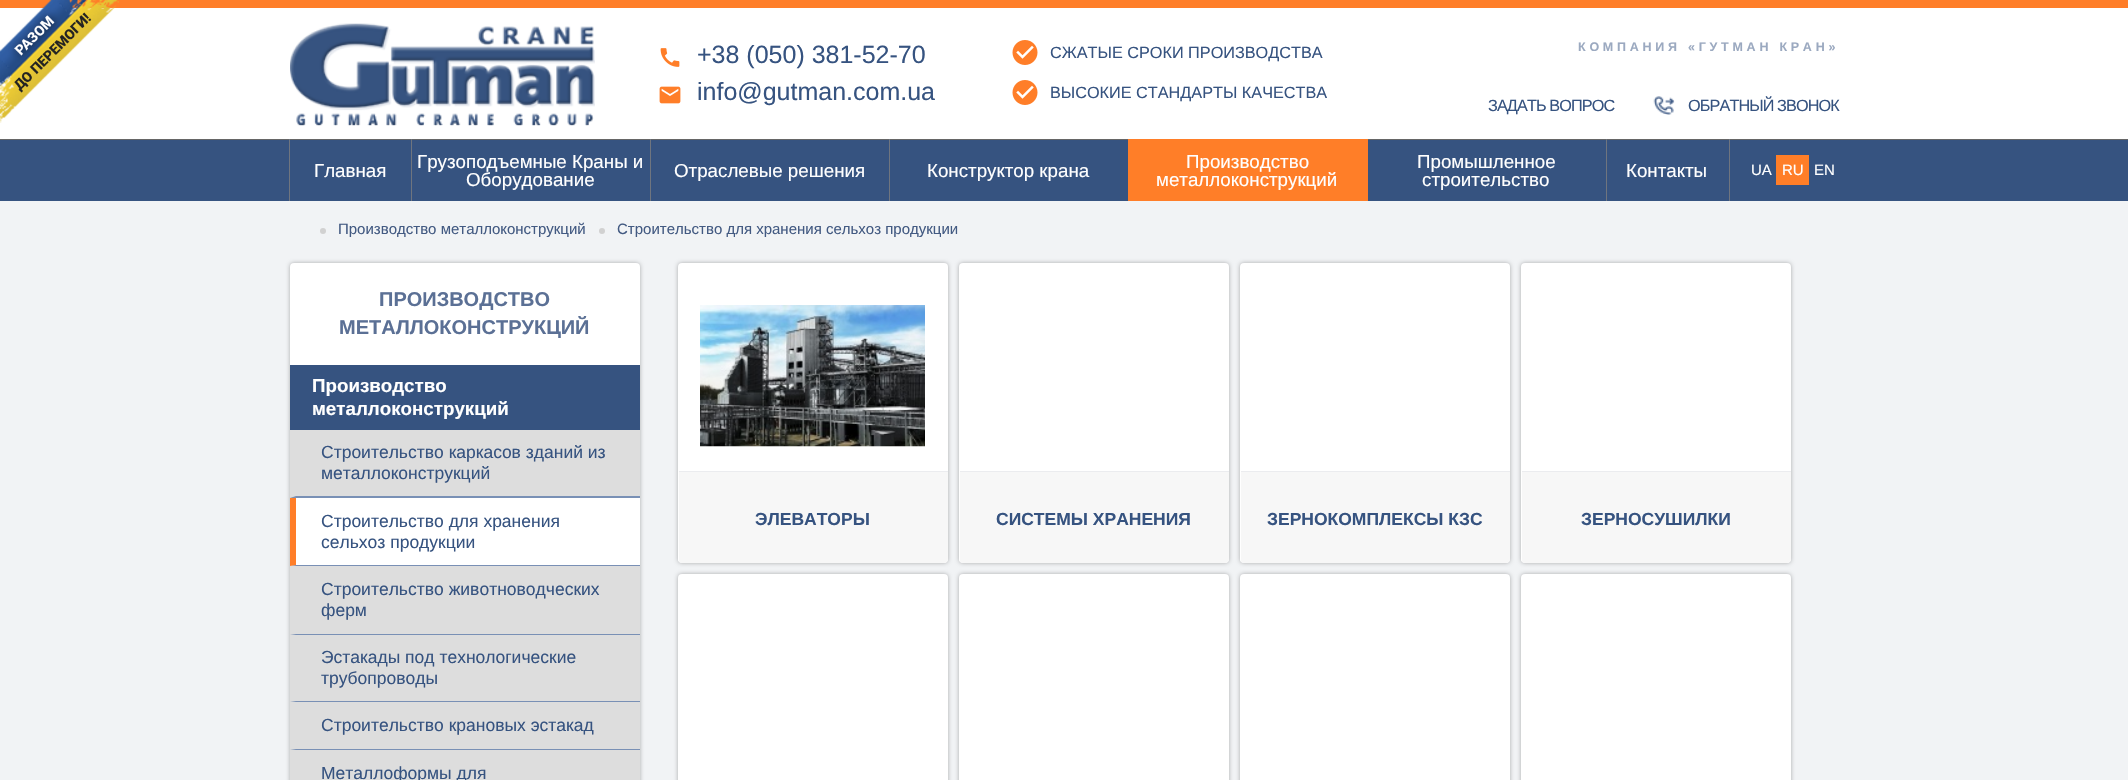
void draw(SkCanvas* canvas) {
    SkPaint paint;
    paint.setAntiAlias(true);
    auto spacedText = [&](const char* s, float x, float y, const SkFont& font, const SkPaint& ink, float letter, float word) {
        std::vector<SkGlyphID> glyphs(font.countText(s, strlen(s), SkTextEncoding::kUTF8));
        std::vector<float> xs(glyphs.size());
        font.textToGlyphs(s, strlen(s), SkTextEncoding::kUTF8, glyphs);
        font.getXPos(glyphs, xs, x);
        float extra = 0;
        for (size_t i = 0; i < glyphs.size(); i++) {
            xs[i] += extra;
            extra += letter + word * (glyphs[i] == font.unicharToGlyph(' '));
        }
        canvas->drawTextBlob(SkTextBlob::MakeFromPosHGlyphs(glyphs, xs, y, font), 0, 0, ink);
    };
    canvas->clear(0xFFF1F3F5);
    paint.setColor(0xFFFF7E28);
    canvas->drawRect(SkRect::MakeXYWH(0, 0, 2128, 8), paint);
    paint.setColor(0xFFFFFFFF);
    canvas->drawRect(SkRect::MakeXYWH(0, 8, 2128, 131), paint);
    canvas->drawImageRect(SkImages::DeferredFromEncodedData(SkData::MakeFromFileName("img1.png")), SkRect::MakeXYWH(0, 0, 119, 123), SkSamplingOptions());
    SkFont font1(fontMgr->matchFamilyStyle("Liberation Sans", SkFontStyle::Bold()), 12.5f);
    font1.setSubpixel(true);
    paint.setColor(0xFF9BA9C0);
    spacedText("КОМПАНИЯ «ГУТМАН КРАН»", 1578, 51, font1, paint, 3.75f, 0);
    canvas->drawImageRect(SkImages::DeferredFromEncodedData(SkData::MakeFromFileName("img2.png")), SkRect::MakeXYWH(290, 23, 305, 103), SkSamplingOptions());
    canvas->drawImageRect(SkImages::DeferredFromEncodedData(SkData::MakeFromFileName("img3.png")), SkRect::MakeXYWH(660, 48, 20, 19), SkSamplingOptions());
    SkFont font2(fontMgr->matchFamilyStyle("Liberation Sans", SkFontStyle::Normal()), 25);
    font2.setSubpixel(true);
    paint.setColor(0xFF365380);
    canvas->drawString("+38 (050) 381-52-70", 697, 63, font2, paint);
    canvas->drawImageRect(SkImages::DeferredFromEncodedData(SkData::MakeFromFileName("img4.png")), SkRect::MakeXYWH(659, 86, 22, 18), SkSamplingOptions());
    canvas->drawString("info@gutman.com.ua", 697, 100, font2, paint);
    canvas->drawImageRect(SkImages::DeferredFromEncodedData(SkData::MakeFromFileName("img5.png")), SkRect::MakeXYWH(1012, 40, 26, 25), SkSamplingOptions());
    SkFont font3(fontMgr->matchFamilyStyle("Liberation Sans", SkFontStyle::Normal()), 16.25f);
    font3.setSubpixel(true);
    canvas->drawString("СЖАТЫЕ СРОКИ ПРОИЗВОДСТВА", 1050, 58, font3, paint);
    canvas->drawImageRect(SkImages::DeferredFromEncodedData(SkData::MakeFromFileName("img5.png")), SkRect::MakeXYWH(1012, 80, 26, 25), SkSamplingOptions());
    canvas->drawString("ВЫСОКИЕ СТАНДАРТЫ КАЧЕСТВА", 1050, 98, font3, paint);
    spacedText("ЗАДАТЬ ВОПРОС", 1488, 111, font3, paint, -0.9f, 0);
    canvas->drawImageRect(SkImages::DeferredFromEncodedData(SkData::MakeFromFileName("img6.png")), SkRect::MakeXYWH(1653, 96, 22, 19), SkSamplingOptions());
    spacedText("ОБРАТНЫЙ ЗВОНОК", 1688, 111, font3, paint, -0.9f, 0);
    canvas->drawRect(SkRect::MakeXYWH(0, 140, 2128, 61), paint);
    paint.setColor(0xFF666666);
    canvas->drawRect(SkRect::MakeXYWH(0, 139, 2128, 1), paint);
    paint.setColor(0xFF6F757F);
    canvas->drawRect(SkRect::MakeXYWH(411, 139, 1, 62), paint);
    canvas->drawRect(SkRect::MakeXYWH(289, 139, 1, 62), paint);
    SkFont font4(fontMgr->matchFamilyStyle("Liberation Sans", SkFontStyle::Normal()), 18.75f);
    font4.setSubpixel(true);
    paint.setColor(0xFFFFFFFF);
    canvas->drawString("Главная", 314, 177, font4, paint);
    paint.setColor(0xFF6F757F);
    canvas->drawRect(SkRect::MakeXYWH(650, 139, 1, 62), paint);
    paint.setColor(0xFFFFFFFF);
    canvas->drawString("Грузоподъемные Краны и", 417, 168, font4, paint);
    canvas->drawString("Оборудование", 466, 186, font4, paint);
    paint.setColor(0xFF6F757F);
    canvas->drawRect(SkRect::MakeXYWH(889, 139, 1, 62), paint);
    paint.setColor(0xFFFFFFFF);
    canvas->drawString("Отраслевые решения", 674, 177, font4, paint);
    canvas->drawString("Конструктор крана", 927, 177, font4, paint);
    paint.setColor(0xFFFF7E28);
    canvas->drawRect(SkRect::MakeXYWH(1128, 139, 240, 62), paint);
    paint.setColor(0xFFFFFFFF);
    canvas->drawString("Производство", 1186, 168, font4, paint);
    canvas->drawString("металлоконструкций", 1156, 186, font4, paint);
    paint.setColor(0xFF6F757F);
    canvas->drawRect(SkRect::MakeXYWH(1606, 139, 1, 62), paint);
    paint.setColor(0xFFFFFFFF);
    canvas->drawString("Промышленное", 1417, 168, font4, paint);
    canvas->drawString("строительство", 1422, 186, font4, paint);
    paint.setColor(0xFF6F757F);
    canvas->drawRect(SkRect::MakeXYWH(1729, 139, 1, 62), paint);
    paint.setColor(0xFFFFFFFF);
    canvas->drawString("Контакты", 1626, 177, font4, paint);
    SkFont font5(fontMgr->matchFamilyStyle("Liberation Sans", SkFontStyle::Normal()), 15);
    font5.setSubpixel(true);
    canvas->drawString("UA", 1751, 175, font5, paint);
    paint.setColor(0xFFFF7E28);
    canvas->drawRect(SkRect::MakeXYWH(1776, 155, 33, 30), paint);
    paint.setColor(0xFFFFFFFF);
    canvas->drawString("RU", 1782, 175, font5, paint);
    canvas->drawString("EN", 1814, 175, font5, paint);
    paint.setColor(0xFFD1D1D1);
    canvas->drawCircle(323, 231, 3, paint);
    paint.setColor(0xFF435A82);
    canvas->drawString("Производство металлоконструкций", 338, 234, font5, paint);
    paint.setColor(0xFFD1D1D1);
    canvas->drawCircle(602, 231, 3, paint);
    paint.setColor(0xFF435A82);
    canvas->drawString("Строительство для хранения сельхоз продукции", 617, 234, font5, paint);
    paint.setColor(0x4D000000);
    paint.setMaskFilter(SkMaskFilter::MakeBlur(kNormal_SkBlurStyle, 2));
    canvas->drawRoundRect(SkRect::MakeXYWH(290, 263, 350, 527), 4, 4, paint);
    paint.setMaskFilter(nullptr);
    paint.setColor(0xFFFFFFFF);
    canvas->drawRoundRect(SkRect::MakeXYWH(290, 263, 350, 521), 4, 4, paint);
    SkFont font6(fontMgr->matchFamilyStyle("Liberation Sans", SkFontStyle::Bold()), 20);
    font6.setSubpixel(true);
    paint.setColor(0xFF5B7095);
    canvas->drawString("ПРОИЗВОДСТВО", 379, 306, font6, paint);
    canvas->drawString("МЕТАЛЛОКОНСТРУКЦИЙ", 339, 334, font6, paint);
    paint.setColor(0xFF365380);
    canvas->drawRect(SkRect::MakeXYWH(290, 365, 350, 65), paint);
    SkFont font7(fontMgr->matchFamilyStyle("Liberation Sans", SkFontStyle::Bold()), 18.75f);
    font7.setSubpixel(true);
    paint.setColor(0xFFFFFFFF);
    canvas->drawString("Производство", 312, 392, font7, paint);
    canvas->drawString("металлоконструкций", 312, 415, font7, paint);
    paint.setColor(0xFFDDDDDD);
    canvas->drawRect(SkRect::MakeXYWH(290, 430, 350, 68), paint);
    paint.setColor(0xFF7990B5);
    canvas->drawPath(SkPathBuilder().moveTo(640, 498).lineTo(290, 498).lineTo(296, 496).lineTo(640, 496).close().detach(), paint);
    SkFont font8(fontMgr->matchFamilyStyle("Liberation Sans", SkFontStyle::Normal()), 17.5f);
    font8.setSubpixel(true);
    paint.setColor(0xFF365380);
    canvas->drawString("Строительство каркасов зданий из", 321, 458, font8, paint);
    canvas->drawString("металлоконструкций", 321, 479, font8, paint);
    paint.setColor(0xFF7990B5);
    canvas->drawPath(SkPathBuilder().moveTo(640, 566).lineTo(290, 566).lineTo(296, 565).lineTo(640, 565).close().detach(), paint);
    paint.setColor(0xFFFF7E28);
    canvas->drawPath(SkPathBuilder().moveTo(290, 566).lineTo(290, 498).lineTo(296, 498).lineTo(296, 565).close().detach(), paint);
    paint.setColor(0xFF365380);
    canvas->drawString("Строительство для хранения", 321, 527, font8, paint);
    canvas->drawString("сельхоз продукции", 321, 548, font8, paint);
    paint.setColor(0xFFDDDDDD);
    canvas->drawRect(SkRect::MakeXYWH(290, 566, 350, 214), paint);
    paint.setColor(0xFF7990B5);
    canvas->drawPath(SkPathBuilder().moveTo(640, 635).lineTo(290, 635).lineTo(296, 634).lineTo(640, 634).close().detach(), paint);
    paint.setColor(0xFF365380);
    canvas->drawString("Строительство животноводческих", 321, 595, font8, paint);
    canvas->drawString("ферм", 321, 616, font8, paint);
    paint.setColor(0xFF7990B5);
    canvas->drawPath(SkPathBuilder().moveTo(640, 702).lineTo(290, 702).lineTo(296, 701).lineTo(640, 701).close().detach(), paint);
    paint.setColor(0xFF365380);
    canvas->drawString("Эстакады под технологические", 321, 663, font8, paint);
    canvas->drawString("трубопроводы", 321, 684, font8, paint);
    paint.setColor(0xFF7990B5);
    canvas->drawPath(SkPathBuilder().moveTo(640, 750).lineTo(290, 750).lineTo(296, 749).lineTo(640, 749).close().detach(), paint);
    paint.setColor(0xFF365380);
    canvas->drawString("Строительство крановых эстакад", 321, 731, font8, paint);
    canvas->drawString("Металлоформы для", 321, 779, font8, paint);
    paint.setColor(0x4D000000);
    paint.setMaskFilter(SkMaskFilter::MakeBlur(kNormal_SkBlurStyle, 2));
    canvas->drawRoundRect(SkRect::MakeXYWH(678, 263, 270, 300), 4, 4, paint);
    paint.setMaskFilter(nullptr);
    paint.setColor(0xFFFFFFFF);
    canvas->drawRoundRect(SkRect::MakeXYWH(678, 263, 270, 300), 4, 4, paint);
    canvas->drawImageRect(SkImages::DeferredFromEncodedData(SkData::MakeFromFileName("img7.png")), SkRect::MakeXYWH(700, 305, 225, 142), SkSamplingOptions());
    paint.setColor(0xFFF7F7F7);
    canvas->drawPath(SkPathBuilder().moveTo(678, 471).lineTo(948, 471).lineTo(948, 559).cubicTo(948, 561, 946, 563, 944, 563).lineTo(682, 563).cubicTo(680, 563, 678, 561, 678, 559).close().detach(), paint);
    paint.setColor(0xFFEBECEF);
    canvas->drawRect(SkRect::MakeXYWH(678, 471, 270, 1), paint);
    canvas->save();
    canvas->clipPath(SkPathBuilder().moveTo(682, 263).lineTo(944, 263).cubicTo(946, 263, 948, 265, 948, 267).lineTo(948, 559).cubicTo(948, 561, 946, 563, 944, 563).lineTo(682, 563).cubicTo(680, 563, 678, 561, 678, 559).lineTo(678, 267).cubicTo(678, 265, 680, 263, 682, 263).close().detach(), true);
    paint.setColor(0xFFFFFFFF);
    canvas->drawRect(SkRect::MakeXYWH(678, 471, 1, 92), paint);
    canvas->restore();
    SkFont font9(fontMgr->matchFamilyStyle("Liberation Sans", SkFontStyle::Bold()), 17.5f);
    font9.setSubpixel(true);
    paint.setColor(0xFF365380);
    canvas->drawString("ЭЛЕВАТОРЫ", 755, 525, font9, paint);
    paint.setColor(0x4D000000);
    paint.setMaskFilter(SkMaskFilter::MakeBlur(kNormal_SkBlurStyle, 2));
    canvas->drawRoundRect(SkRect::MakeXYWH(959, 263, 270, 300), 4, 4, paint);
    paint.setMaskFilter(nullptr);
    paint.setColor(0xFFFFFFFF);
    canvas->drawRoundRect(SkRect::MakeXYWH(959, 263, 270, 300), 4, 4, paint);
    paint.setColor(0xFFF7F7F7);
    canvas->drawPath(SkPathBuilder().moveTo(959, 471).lineTo(1229, 471).lineTo(1229, 559).cubicTo(1229, 561, 1227, 563, 1225, 563).lineTo(963, 563).cubicTo(961, 563, 959, 561, 959, 559).close().detach(), paint);
    paint.setColor(0xFFEBECEF);
    canvas->drawRect(SkRect::MakeXYWH(959, 471, 270, 1), paint);
    canvas->save();
    canvas->clipPath(SkPathBuilder().moveTo(963, 263).lineTo(1225, 263).cubicTo(1227, 263, 1229, 265, 1229, 267).lineTo(1229, 559).cubicTo(1229, 561, 1227, 563, 1225, 563).lineTo(963, 563).cubicTo(961, 563, 959, 561, 959, 559).lineTo(959, 267).cubicTo(959, 265, 961, 263, 963, 263).close().detach(), true);
    paint.setColor(0xFFFFFFFF);
    canvas->drawRect(SkRect::MakeXYWH(959, 471, 1, 92), paint);
    canvas->restore();
    paint.setColor(0xFF365380);
    canvas->drawString("CИСТЕМЫ ХРАНЕНИЯ", 996, 525, font9, paint);
    paint.setColor(0x4D000000);
    paint.setMaskFilter(SkMaskFilter::MakeBlur(kNormal_SkBlurStyle, 2));
    canvas->drawRoundRect(SkRect::MakeXYWH(1240, 263, 270, 300), 4, 4, paint);
    paint.setMaskFilter(nullptr);
    paint.setColor(0xFFFFFFFF);
    canvas->drawRoundRect(SkRect::MakeXYWH(1240, 263, 270, 300), 4, 4, paint);
    paint.setColor(0xFFF7F7F7);
    canvas->drawPath(SkPathBuilder().moveTo(1240, 471).lineTo(1510, 471).lineTo(1510, 559).cubicTo(1510, 561, 1508, 563, 1506, 563).lineTo(1244, 563).cubicTo(1242, 563, 1240, 561, 1240, 559).close().detach(), paint);
    paint.setColor(0xFFEBECEF);
    canvas->drawRect(SkRect::MakeXYWH(1240, 471, 270, 1), paint);
    canvas->save();
    canvas->clipPath(SkPathBuilder().moveTo(1244, 263).lineTo(1506, 263).cubicTo(1508, 263, 1510, 265, 1510, 267).lineTo(1510, 559).cubicTo(1510, 561, 1508, 563, 1506, 563).lineTo(1244, 563).cubicTo(1242, 563, 1240, 561, 1240, 559).lineTo(1240, 267).cubicTo(1240, 265, 1242, 263, 1244, 263).close().detach(), true);
    paint.setColor(0xFFFFFFFF);
    canvas->drawRect(SkRect::MakeXYWH(1240, 471, 1, 92), paint);
    canvas->restore();
    paint.setColor(0xFF365380);
    canvas->drawString("ЗЕРНОКОМПЛЕКСЫ КЗС", 1267, 525, font9, paint);
    paint.setColor(0x4D000000);
    paint.setMaskFilter(SkMaskFilter::MakeBlur(kNormal_SkBlurStyle, 2));
    canvas->drawRoundRect(SkRect::MakeXYWH(1521, 263, 270, 300), 4, 4, paint);
    paint.setMaskFilter(nullptr);
    paint.setColor(0xFFFFFFFF);
    canvas->drawRoundRect(SkRect::MakeXYWH(1521, 263, 270, 300), 4, 4, paint);
    paint.setColor(0xFFF7F7F7);
    canvas->drawPath(SkPathBuilder().moveTo(1521, 471).lineTo(1791, 471).lineTo(1791, 559).cubicTo(1791, 561, 1789, 563, 1787, 563).lineTo(1525, 563).cubicTo(1523, 563, 1521, 561, 1521, 559).close().detach(), paint);
    paint.setColor(0xFFEBECEF);
    canvas->drawRect(SkRect::MakeXYWH(1521, 471, 270, 1), paint);
    canvas->save();
    canvas->clipPath(SkPathBuilder().moveTo(1525, 263).lineTo(1787, 263).cubicTo(1789, 263, 1791, 265, 1791, 267).lineTo(1791, 559).cubicTo(1791, 561, 1789, 563, 1787, 563).lineTo(1525, 563).cubicTo(1523, 563, 1521, 561, 1521, 559).lineTo(1521, 267).cubicTo(1521, 265, 1523, 263, 1525, 263).close().detach(), true);
    paint.setColor(0xFFFFFFFF);
    canvas->drawRect(SkRect::MakeXYWH(1521, 471, 1, 92), paint);
    canvas->restore();
    paint.setColor(0xFF365380);
    canvas->drawString("ЗЕРНОСУШИЛКИ", 1581, 525, font9, paint);
    paint.setColor(0x4D000000);
    paint.setMaskFilter(SkMaskFilter::MakeBlur(kNormal_SkBlurStyle, 2));
    canvas->drawRoundRect(SkRect::MakeXYWH(678, 574, 270, 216), 4, 4, paint);
    paint.setMaskFilter(nullptr);
    paint.setColor(0xFFFFFFFF);
    canvas->drawRoundRect(SkRect::MakeXYWH(678, 574, 270, 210), 4, 4, paint);
    paint.setColor(0x4D000000);
    paint.setMaskFilter(SkMaskFilter::MakeBlur(kNormal_SkBlurStyle, 2));
    canvas->drawRoundRect(SkRect::MakeXYWH(959, 574, 270, 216), 4, 4, paint);
    paint.setMaskFilter(nullptr);
    paint.setColor(0xFFFFFFFF);
    canvas->drawRoundRect(SkRect::MakeXYWH(959, 574, 270, 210), 4, 4, paint);
    paint.setColor(0x4D000000);
    paint.setMaskFilter(SkMaskFilter::MakeBlur(kNormal_SkBlurStyle, 2));
    canvas->drawRoundRect(SkRect::MakeXYWH(1240, 574, 270, 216), 4, 4, paint);
    paint.setMaskFilter(nullptr);
    paint.setColor(0xFFFFFFFF);
    canvas->drawRoundRect(SkRect::MakeXYWH(1240, 574, 270, 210), 4, 4, paint);
    paint.setColor(0x4D000000);
    paint.setMaskFilter(SkMaskFilter::MakeBlur(kNormal_SkBlurStyle, 2));
    canvas->drawRoundRect(SkRect::MakeXYWH(1521, 574, 270, 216), 4, 4, paint);
    paint.setMaskFilter(nullptr);
    paint.setColor(0xFFFFFFFF);
    canvas->drawRoundRect(SkRect::MakeXYWH(1521, 574, 270, 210), 4, 4, paint);
}
